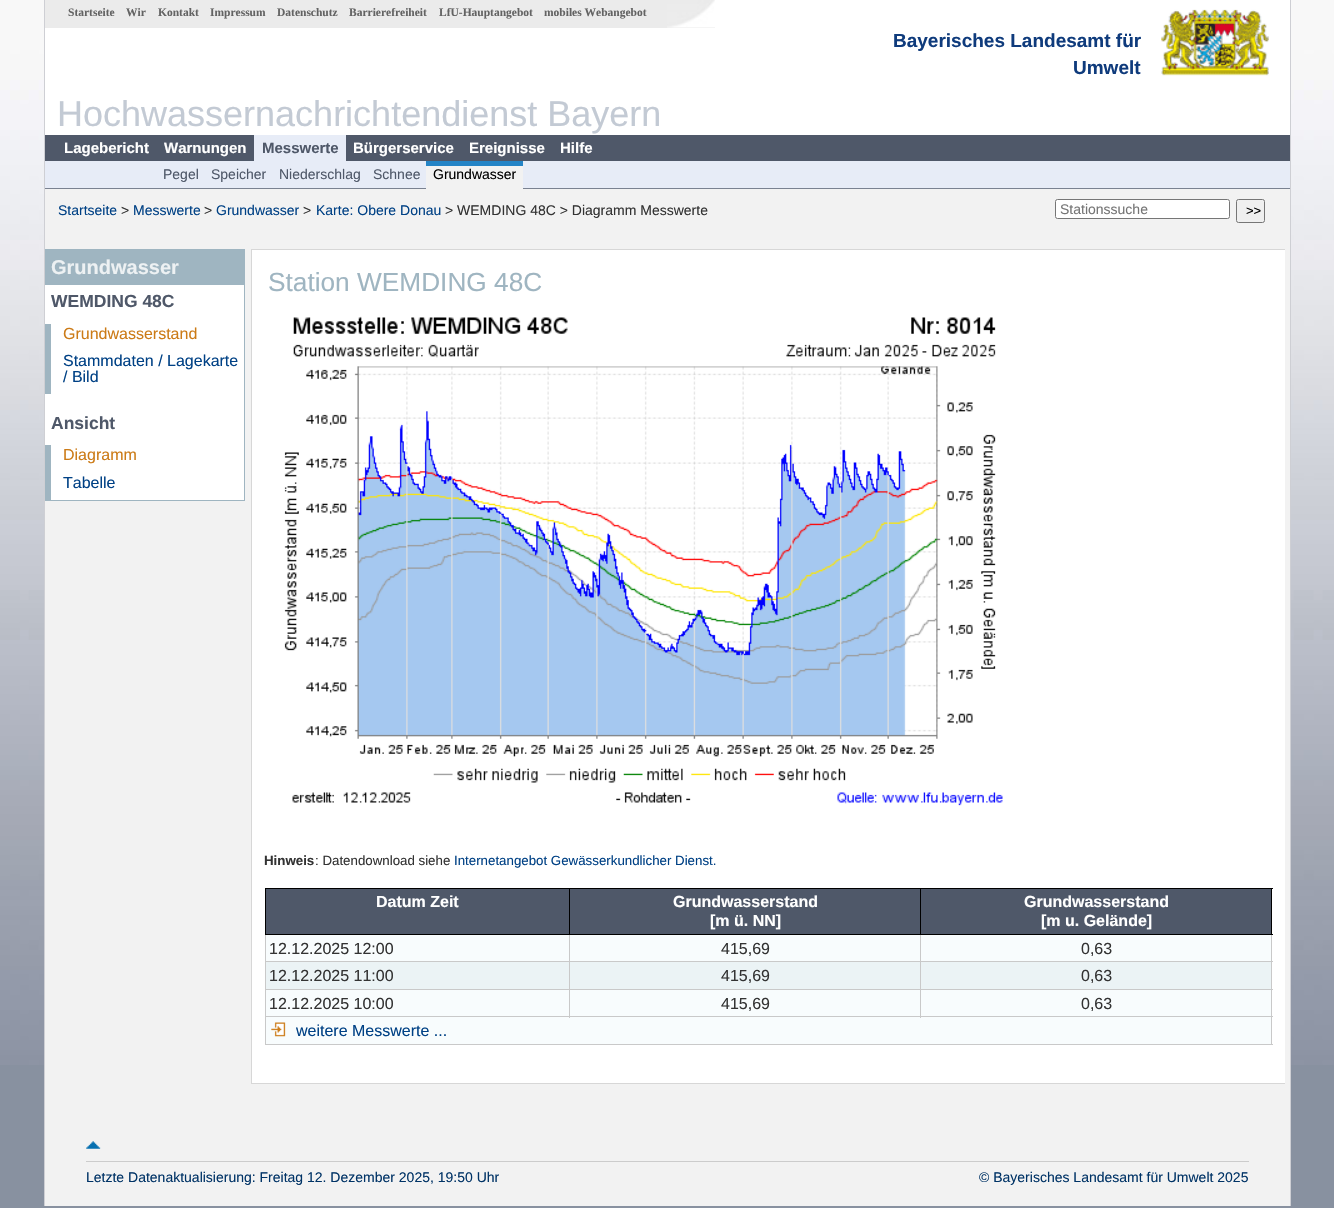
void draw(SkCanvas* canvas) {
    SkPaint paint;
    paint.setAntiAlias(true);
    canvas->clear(0xFF8891A0);
    canvas->drawImageRect(SkImages::DeferredFromEncodedData(SkData::MakeFromFileName("img1.png")), SkRect::MakeXYWH(0, 0, 1334, 1065), SkSamplingOptions());
    paint.setColor(0xFFFFFFFF);
    canvas->drawRect(SkRect::MakeXYWH(45, 0, 1245, 135), paint);
    paint.setColor(0xFFCECFD4);
    canvas->drawRect(SkRect::MakeXYWH(1290, 0, 1, 1206), paint);
    canvas->drawRect(SkRect::MakeXYWH(44, 0, 1, 1206), paint);
    canvas->drawImageRect(SkImages::DeferredFromEncodedData(SkData::MakeFromFileName("img2.png")), SkRect::MakeXYWH(1161, 9, 108, 67), SkSamplingOptions());
    paint.setColor(0xFFEBEBEB);
    canvas->drawRect(SkRect::MakeXYWH(45, 0, 670, 28), paint);
    canvas->drawImageRect(SkImages::DeferredFromEncodedData(SkData::MakeFromFileName("img3.png")), SkRect::MakeXYWH(667, 0, 48, 28), SkSamplingOptions());
    SkFont font1(fontMgr->matchFamilyStyle("Liberation Serif", SkFontStyle::Bold()), 11.5f);
    font1.setSubpixel(true);
    paint.setColor(0xFF636363);
    canvas->drawString("Startseite", 68, 16, font1, paint);
    canvas->drawString("Wir", 126, 16, font1, paint);
    canvas->drawString("Kontakt", 158, 16, font1, paint);
    canvas->drawString("Impressum", 210, 16, font1, paint);
    canvas->drawString("Datenschutz", 277, 16, font1, paint);
    canvas->drawString("Barrierefreiheit", 349, 16, font1, paint);
    canvas->drawString("LfU-Hauptangebot", 439, 16, font1, paint);
    canvas->drawString("mobiles Webangebot", 544, 16, font1, paint);
    SkFont font2(fontMgr->matchFamilyStyle("Liberation Sans", SkFontStyle::Bold()), 19);
    font2.setSubpixel(true);
    paint.setColor(0xFF0F3B7C);
    canvas->drawString("Bayerisches Landesamt für", 893, 47, font2, paint);
    canvas->drawString("Umwelt", 1073, 74, font2, paint);
    SkFont font3(fontMgr->matchFamilyStyle("Liberation Sans", SkFontStyle::Normal()), 36);
    font3.setSubpixel(true);
    paint.setColor(0xFFC3CAD4);
    canvas->drawString("Hochwassernachrichtendienst Bayern", 57, 126, font3, paint);
    paint.setColor(0xFF4F5869);
    canvas->drawRect(SkRect::MakeXYWH(45, 135, 1245, 26), paint);
    SkFont font4(fontMgr->matchFamilyStyle("Liberation Sans", SkFontStyle::Bold()), 15);
    font4.setSubpixel(true);
    paint.setColor(0xFFFFFFFF);
    canvas->drawString("Lagebericht", 64, 153, font4, paint);
    canvas->drawString("Warnungen", 164, 153, font4, paint);
    paint.setColor(0xFFE7ECF7);
    canvas->drawRect(SkRect::MakeXYWH(254, 135, 92, 26), paint);
    paint.setColor(0xFF4F5869);
    canvas->drawString("Messwerte", 262, 153, font4, paint);
    paint.setColor(0xFFFFFFFF);
    canvas->drawString("Bürgerservice", 353, 153, font4, paint);
    canvas->drawString("Ereignisse", 469, 153, font4, paint);
    canvas->drawString("Hilfe", 560, 153, font4, paint);
    paint.setColor(0xFFE7ECF7);
    canvas->drawRect(SkRect::MakeXYWH(45, 161, 1245, 27), paint);
    paint.setColor(0xFF7A8291);
    canvas->drawRect(SkRect::MakeXYWH(45, 188, 1245, 1), paint);
    SkFont font5(fontMgr->matchFamilyStyle("Liberation Sans", SkFontStyle::Normal()), 14);
    font5.setSubpixel(true);
    paint.setColor(0xFF4F5869);
    canvas->drawString("Pegel", 163, 179, font5, paint);
    canvas->drawString("Speicher", 211, 179, font5, paint);
    canvas->drawString("Niederschlag", 279, 179, font5, paint);
    canvas->drawString("Schnee", 373, 179, font5, paint);
    paint.setColor(0xFFF2F2F2);
    canvas->drawRect(SkRect::MakeXYWH(426, 166, 97, 23), paint);
    paint.setColor(0xFF2484C6);
    canvas->drawRect(SkRect::MakeXYWH(426, 161, 97, 5), paint);
    paint.setColor(0xFF000000);
    canvas->drawString("Grundwasser", 433, 179, font5, paint);
    paint.setColor(0xFFF2F2F2);
    canvas->drawRect(SkRect::MakeXYWH(45, 189, 1245, 1017), paint);
    paint.setColor(0xFF004185);
    canvas->drawString("Startseite", 58, 215, font5, paint);
    paint.setColor(0xFF333333);
    canvas->drawString(">", 121, 215, font5, paint);
    paint.setColor(0xFF004185);
    canvas->drawString("Messwerte", 133, 215, font5, paint);
    paint.setColor(0xFF333333);
    canvas->drawString(">", 204, 215, font5, paint);
    paint.setColor(0xFF004185);
    canvas->drawString("Grundwasser", 216, 215, font5, paint);
    paint.setColor(0xFF333333);
    canvas->drawString(">", 303, 215, font5, paint);
    paint.setColor(0xFF004185);
    canvas->drawString("Karte: Obere Donau", 316, 215, font5, paint);
    paint.setColor(0xFF333333);
    canvas->drawString("> WEMDING 48C > Diagramm Messwerte", 445, 215, font5, paint);
    paint.setColor(0xFFFFFFFF);
    canvas->drawRoundRect(SkRect::MakeXYWH(1055.5f, 199.5f, 174, 19), 2, 2, paint);
    paint.setStyle(SkPaint::kStroke_Style);
    paint.setStrokeWidth(1);
    paint.setColor(0xFF767676);
    canvas->drawRoundRect(SkRect::MakeXYWH(1055.5f, 199.5f, 174, 19), 2, 2, paint);
    paint.setStyle(SkPaint::kFill_Style);
    paint.setColor(0xFF757575);
    canvas->drawString("Stationssuche", 1060, 214, font5, paint);
    paint.setColor(0xFFEFEFEF);
    canvas->drawRoundRect(SkRect::MakeXYWH(1236.5f, 199.5f, 28, 23), 2, 2, paint);
    paint.setStyle(SkPaint::kStroke_Style);
    paint.setColor(0xFF767676);
    canvas->drawRoundRect(SkRect::MakeXYWH(1236.5f, 199.5f, 28, 23), 2, 2, paint);
    SkFont font6(fontMgr->matchFamilyStyle("Liberation Sans", SkFontStyle::Normal()), 13);
    font6.setSubpixel(true);
    paint.setStyle(SkPaint::kFill_Style);
    paint.setColor(0xFF000000);
    canvas->drawString(">>", 1246, 215, font6, paint);
    paint.setColor(0xFFFFFFFF);
    canvas->drawRect(SkRect::MakeXYWH(45, 285, 199, 215), paint);
    paint.setColor(0xFF9FB5C1);
    canvas->drawRect(SkRect::MakeXYWH(45, 249, 200, 1), paint);
    canvas->drawRect(SkRect::MakeXYWH(244, 249, 1, 252), paint);
    canvas->drawRect(SkRect::MakeXYWH(45, 500, 200, 1), paint);
    canvas->drawRect(SkRect::MakeXYWH(45, 250, 199, 35), paint);
    SkFont font7(fontMgr->matchFamilyStyle("Liberation Sans", SkFontStyle::Bold()), 20);
    font7.setSubpixel(true);
    paint.setColor(0xFFEDF1F3);
    canvas->drawString("Grundwasser", 51, 274, font7, paint);
    SkFont font8(fontMgr->matchFamilyStyle("Liberation Sans", SkFontStyle::Bold()), 17.5f);
    font8.setSubpixel(true);
    paint.setColor(0xFF4F5869);
    canvas->drawString("WEMDING 48C", 51, 307, font8, paint);
    paint.setColor(0xFF9FB5C1);
    canvas->drawRect(SkRect::MakeXYWH(45, 324, 6, 70), paint);
    SkFont font9(fontMgr->matchFamilyStyle("Liberation Sans", SkFontStyle::Normal()), 16);
    font9.setSubpixel(true);
    paint.setColor(0xFFCC7B17);
    canvas->drawString("Grundwasserstand", 63, 339, font9, paint);
    paint.setColor(0xFF004185);
    canvas->drawString("Stammdaten / Lagekarte", 63, 366, font9, paint);
    canvas->drawString("/ Bild", 63, 382, font9, paint);
    paint.setColor(0xFF4F5869);
    canvas->drawString("Ansicht", 51, 429, font8, paint);
    paint.setColor(0xFF9FB5C1);
    canvas->drawRect(SkRect::MakeXYWH(45, 445, 6, 55), paint);
    paint.setColor(0xFFCC7B17);
    canvas->drawString("Diagramm", 63, 460, font9, paint);
    paint.setColor(0xFF004185);
    canvas->drawString("Tabelle", 63, 488, font9, paint);
    paint.setColor(0xFFFFFFFF);
    canvas->drawRect(SkRect::MakeXYWH(252, 250, 1033, 833), paint);
    paint.setColor(0xFFD7D7D7);
    canvas->drawRect(SkRect::MakeXYWH(251, 249, 1034, 1), paint);
    canvas->drawRect(SkRect::MakeXYWH(251, 1083, 1034, 1), paint);
    canvas->drawRect(SkRect::MakeXYWH(251, 249, 1, 835), paint);
    SkFont font10(fontMgr->matchFamilyStyle("Liberation Sans", SkFontStyle::Normal()), 26.25f);
    font10.setSubpixel(true);
    paint.setColor(0xFF9FB5C1);
    canvas->drawString("Station WEMDING 48C", 268, 291, font10, paint);
    canvas->drawImageRect(SkImages::DeferredFromEncodedData(SkData::MakeFromFileName("img4.png")), SkRect::MakeXYWH(284, 316, 719, 490), SkSamplingOptions());
    SkFont font11(fontMgr->matchFamilyStyle("Liberation Sans", SkFontStyle::Bold()), 13.3f);
    font11.setSubpixel(true);
    paint.setColor(0xFF333333);
    canvas->drawString("Hinweis", 264, 865, font11, paint);
    SkFont font12(fontMgr->matchFamilyStyle("Liberation Sans", SkFontStyle::Normal()), 13.3f);
    font12.setSubpixel(true);
    canvas->drawString(": Datendownload siehe", 315, 865, font12, paint);
    paint.setColor(0xFF004185);
    canvas->drawString("Internetangebot Gewässerkundlicher Dienst.", 454, 865, font12, paint);
    paint.setColor(0xFF4F5869);
    canvas->drawRect(SkRect::MakeXYWH(266, 889, 303, 45), paint);
    paint.setColor(0xFF000000);
    canvas->drawRect(SkRect::MakeXYWH(920, 888, 353, 1), paint);
    paint.setColor(0xFFC9C9C9);
    canvas->drawRect(SkRect::MakeXYWH(920, 961, 353, 1), paint);
    canvas->drawRect(SkRect::MakeXYWH(920, 989, 353, 1), paint);
    canvas->drawRect(SkRect::MakeXYWH(265, 1016, 1008, 1), paint);
    canvas->drawRect(SkRect::MakeXYWH(1271, 1016, 1, 29), paint);
    canvas->drawRect(SkRect::MakeXYWH(1271, 989, 1, 29), paint);
    canvas->drawRect(SkRect::MakeXYWH(1271, 934, 1, 56), paint);
    paint.setColor(0xFF000000);
    canvas->drawRect(SkRect::MakeXYWH(1271, 888, 1, 47), paint);
    paint.setColor(0xFFF8FCFD);
    canvas->drawRect(SkRect::MakeXYWH(266, 935, 1005, 26), paint);
    paint.setColor(0xFFEBF3F5);
    canvas->drawRect(SkRect::MakeXYWH(266, 962, 1005, 27), paint);
    paint.setColor(0xFFF8FCFD);
    canvas->drawRect(SkRect::MakeXYWH(266, 990, 1005, 26), paint);
    canvas->drawRect(SkRect::MakeXYWH(266, 1017, 1005, 27), paint);
    paint.setColor(0xFFC9C9C9);
    canvas->drawRect(SkRect::MakeXYWH(920, 989, 1, 29), paint);
    canvas->drawRect(SkRect::MakeXYWH(569, 989, 352, 1), paint);
    canvas->drawRect(SkRect::MakeXYWH(920, 961, 1, 29), paint);
    canvas->drawRect(SkRect::MakeXYWH(569, 961, 352, 1), paint);
    canvas->drawRect(SkRect::MakeXYWH(920, 934, 1, 29), paint);
    paint.setColor(0xFF000000);
    canvas->drawRect(SkRect::MakeXYWH(920, 934, 353, 1), paint);
    canvas->drawRect(SkRect::MakeXYWH(920, 888, 1, 47), paint);
    canvas->drawRect(SkRect::MakeXYWH(569, 888, 352, 1), paint);
    paint.setColor(0xFFC9C9C9);
    canvas->drawRect(SkRect::MakeXYWH(569, 989, 1, 29), paint);
    canvas->drawRect(SkRect::MakeXYWH(265, 989, 305, 1), paint);
    canvas->drawRect(SkRect::MakeXYWH(569, 961, 1, 29), paint);
    canvas->drawRect(SkRect::MakeXYWH(265, 961, 305, 1), paint);
    canvas->drawRect(SkRect::MakeXYWH(569, 934, 1, 29), paint);
    paint.setColor(0xFF000000);
    canvas->drawRect(SkRect::MakeXYWH(569, 934, 352, 1), paint);
    canvas->drawRect(SkRect::MakeXYWH(569, 888, 1, 47), paint);
    canvas->drawRect(SkRect::MakeXYWH(265, 888, 305, 1), paint);
    paint.setColor(0xFFC9C9C9);
    canvas->drawRect(SkRect::MakeXYWH(265, 1044, 1008, 1), paint);
    canvas->drawRect(SkRect::MakeXYWH(265, 1016, 1, 29), paint);
    canvas->drawRect(SkRect::MakeXYWH(265, 989, 1, 29), paint);
    canvas->drawRect(SkRect::MakeXYWH(265, 934, 1, 56), paint);
    paint.setColor(0xFF000000);
    canvas->drawRect(SkRect::MakeXYWH(265, 934, 305, 1), paint);
    canvas->drawRect(SkRect::MakeXYWH(265, 888, 1, 47), paint);
    SkFont font13(fontMgr->matchFamilyStyle("Liberation Sans", SkFontStyle::Bold()), 16);
    font13.setSubpixel(true);
    paint.setColor(0xFFFFFFFF);
    canvas->drawString("Datum Zeit", 376, 907, font13, paint);
    paint.setColor(0xFF4F5869);
    canvas->drawRect(SkRect::MakeXYWH(570, 889, 350, 45), paint);
    paint.setColor(0xFFFFFFFF);
    canvas->drawString("Grundwasserstand", 673, 907, font13, paint);
    canvas->drawString("[m ü. NN]", 710, 926, font13, paint);
    paint.setColor(0xFF4F5869);
    canvas->drawRect(SkRect::MakeXYWH(921, 889, 350, 45), paint);
    paint.setColor(0xFFFFFFFF);
    canvas->drawString("Grundwasserstand", 1024, 907, font13, paint);
    canvas->drawString("[m u. Gelände]", 1041, 926, font13, paint);
    paint.setColor(0xFF333333);
    canvas->drawString("12.12.2025 12:00", 269, 954, font9, paint);
    canvas->drawString("415,69", 721, 954, font9, paint);
    canvas->drawString("0,63", 1081, 954, font9, paint);
    canvas->drawString("12.12.2025 11:00", 269, 981, font9, paint);
    canvas->drawString("415,69", 721, 981, font9, paint);
    canvas->drawString("0,63", 1081, 981, font9, paint);
    canvas->drawString("12.12.2025 10:00", 269, 1009, font9, paint);
    canvas->drawString("415,69", 721, 1009, font9, paint);
    canvas->drawString("0,63", 1081, 1009, font9, paint);
    canvas->drawImageRect(SkImages::DeferredFromEncodedData(SkData::MakeFromFileName("img5.png")), SkRect::MakeXYWH(271, 1022, 15, 15), SkSamplingOptions());
    paint.setColor(0xFF004185);
    canvas->drawString("weitere Messwerte ...", 296, 1036, font9, paint);
    canvas->drawImageRect(SkImages::DeferredFromEncodedData(SkData::MakeFromFileName("img6.png")), SkRect::MakeXYWH(86, 1141, 15, 8), SkSamplingOptions());
    paint.setColor(0xFFCCCCCC);
    canvas->drawRect(SkRect::MakeXYWH(86, 1161, 1163, 1), paint);
    paint.setColor(0xFF003366);
    canvas->drawString("Letzte Datenaktualisierung: Freitag 12. Dezember 2025, 19:50 Uhr", 86, 1182, font5, paint);
    canvas->drawString("© Bayerisches Landesamt für Umwelt 2025", 979, 1182, font5, paint);
}
